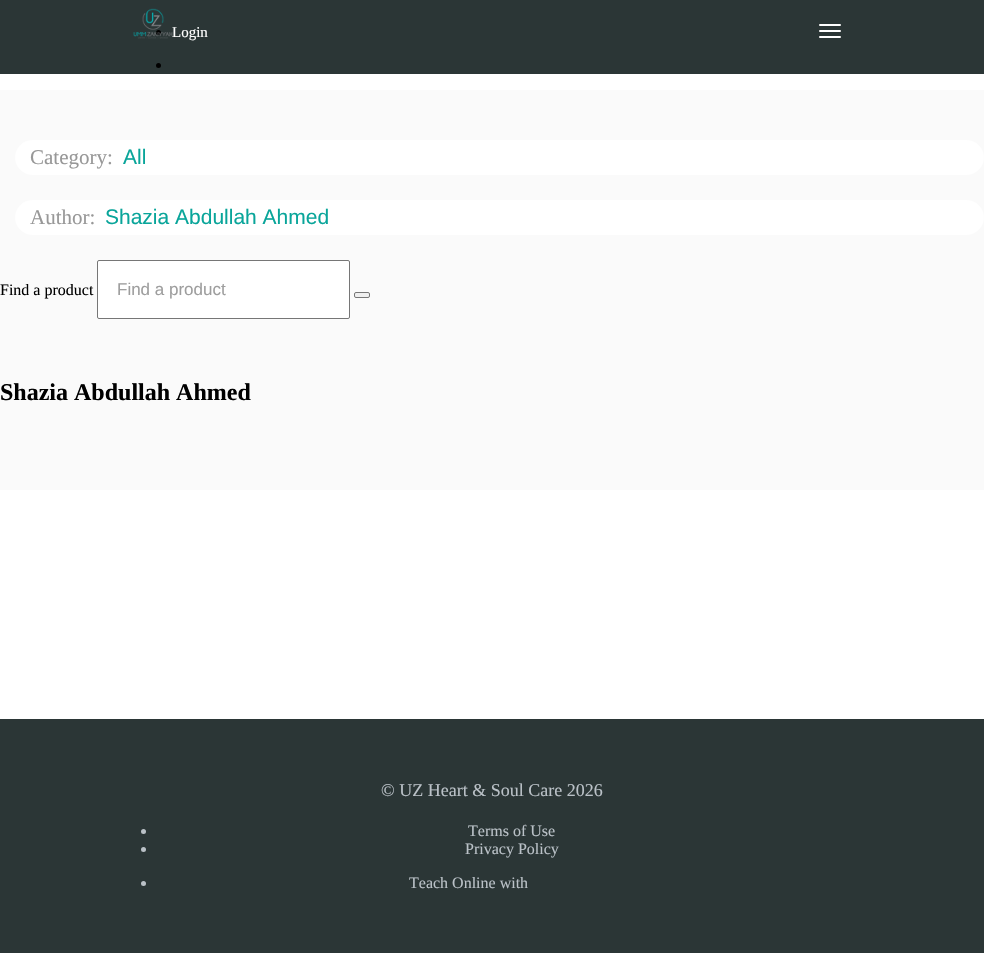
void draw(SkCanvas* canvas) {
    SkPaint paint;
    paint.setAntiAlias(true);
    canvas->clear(0xFFFFFFFF);
    paint.setColor(0xFF2B3636);
    canvas->drawRect(SkRect::MakeXYWH(0, 0, 984, 74), paint);
    paint.setColor(0xFF000000);
    canvas->drawCircle(158.5f, 32.5f, 2.5f, paint);
    SkFont font1(fontMgr->matchFamilyStyle("Liberation Serif", SkFontStyle::Normal()), 15);
    font1.setSubpixel(true);
    paint.setColor(0xFFFFFFFF);
    canvas->drawString("Login", 172, 37, font1, paint);
    canvas->drawImageRect(SkImages::DeferredFromEncodedData(SkData::MakeFromFileName("img1.png")), SkRect::MakeXYWH(133, 8, 40, 31), SkSamplingOptions());
    paint.setColor(0xFF000000);
    canvas->drawCircle(158.5f, 65.5f, 2.5f, paint);
    paint.setColor(0xFFFFFFFF);
    canvas->drawRoundRect(SkRect::MakeXYWH(819, 24, 22, 2), 1, 1, paint);
    canvas->drawRoundRect(SkRect::MakeXYWH(819, 30, 22, 2), 1, 1, paint);
    canvas->drawRoundRect(SkRect::MakeXYWH(819, 36, 22, 2), 1, 1, paint);
    paint.setColor(0xFFFAFAFA);
    canvas->drawRect(SkRect::MakeXYWH(0, 90, 984, 400), paint);
    paint.setColor(0xFFFFFFFF);
    canvas->drawRoundRect(SkRect::MakeXYWH(15, 140, 969, 35), 17.5f, 17.5f, paint);
    SkFont font2(fontMgr->matchFamilyStyle("Liberation Serif", SkFontStyle::Normal()), 21);
    font2.setSubpixel(true);
    paint.setColor(0xFF989898);
    canvas->drawString("Category:", 30, 164, font2, paint);
    SkFont font3(fontMgr->matchFamilyStyle("Liberation Sans", SkFontStyle::Normal()), 21);
    font3.setSubpixel(true);
    paint.setColor(0xFF09A59A);
    canvas->drawString("All", 123, 164, font3, paint);
    paint.setColor(0xFFFFFFFF);
    canvas->drawRoundRect(SkRect::MakeXYWH(15, 200, 969, 35), 17.5f, 17.5f, paint);
    paint.setColor(0xFF989898);
    canvas->drawString("Author:", 30, 224, font2, paint);
    paint.setColor(0xFF09A59A);
    canvas->drawString("Shazia Abdullah Ahmed", 105, 224, font3, paint);
    SkFont font4(fontMgr->matchFamilyStyle("Liberation Serif", SkFontStyle::Normal()), 16);
    font4.setSubpixel(true);
    paint.setColor(0xFF000000);
    canvas->drawString("Find a product", 0, 295, font4, paint);
    paint.setColor(0xFFFFFFFF);
    canvas->drawRoundRect(SkRect::MakeXYWH(97.5f, 260.5f, 252, 58), 1.5f, 1.5f, paint);
    paint.setStyle(SkPaint::kStroke_Style);
    paint.setStrokeWidth(1);
    paint.setColor(0xFF767676);
    canvas->drawRoundRect(SkRect::MakeXYWH(97.5f, 260.5f, 252, 58), 1.5f, 1.5f, paint);
    SkFont font5(fontMgr->matchFamilyStyle("Liberation Sans", SkFontStyle::Normal()), 17);
    font5.setSubpixel(true);
    paint.setStyle(SkPaint::kFill_Style);
    paint.setColor(0xFF9E9E9E);
    canvas->drawString("Find a product", 117, 295, font5, paint);
    paint.setColor(0xFFEFEFEF);
    canvas->drawRoundRect(SkRect::MakeXYWH(354.5f, 292.5f, 15, 5), 1.5f, 1.5f, paint);
    paint.setStyle(SkPaint::kStroke_Style);
    paint.setColor(0xFF767676);
    canvas->drawRoundRect(SkRect::MakeXYWH(354.5f, 292.5f, 15, 5), 1.5f, 1.5f, paint);
    SkFont font6(fontMgr->matchFamilyStyle("Liberation Serif", SkFontStyle::Bold()), 24);
    font6.setSubpixel(true);
    paint.setStyle(SkPaint::kFill_Style);
    paint.setColor(0xFF000000);
    canvas->drawString("Shazia Abdullah Ahmed", 0, 400, font6, paint);
    paint.setColor(0xFF2B3636);
    canvas->drawRect(SkRect::MakeXYWH(0, 719, 984, 234), paint);
    SkFont font7(fontMgr->matchFamilyStyle("Liberation Serif", SkFontStyle::Normal()), 18);
    font7.setSubpixel(true);
    paint.setColor(0xFFBAC1C7);
    canvas->drawString("© UZ Heart & Soul Care 2026", 381, 796, font7, paint);
    canvas->drawCircle(143.5f, 831.5f, 2.5f, paint);
    canvas->drawString("Terms of Use", 468, 836, font4, paint);
    canvas->drawCircle(143.5f, 849.5f, 2.5f, paint);
    canvas->drawString("Privacy Policy", 465, 854, font4, paint);
    canvas->drawCircle(143.5f, 883.5f, 2.5f, paint);
    canvas->drawString("Teach Online with", 409, 888, font4, paint);
}
